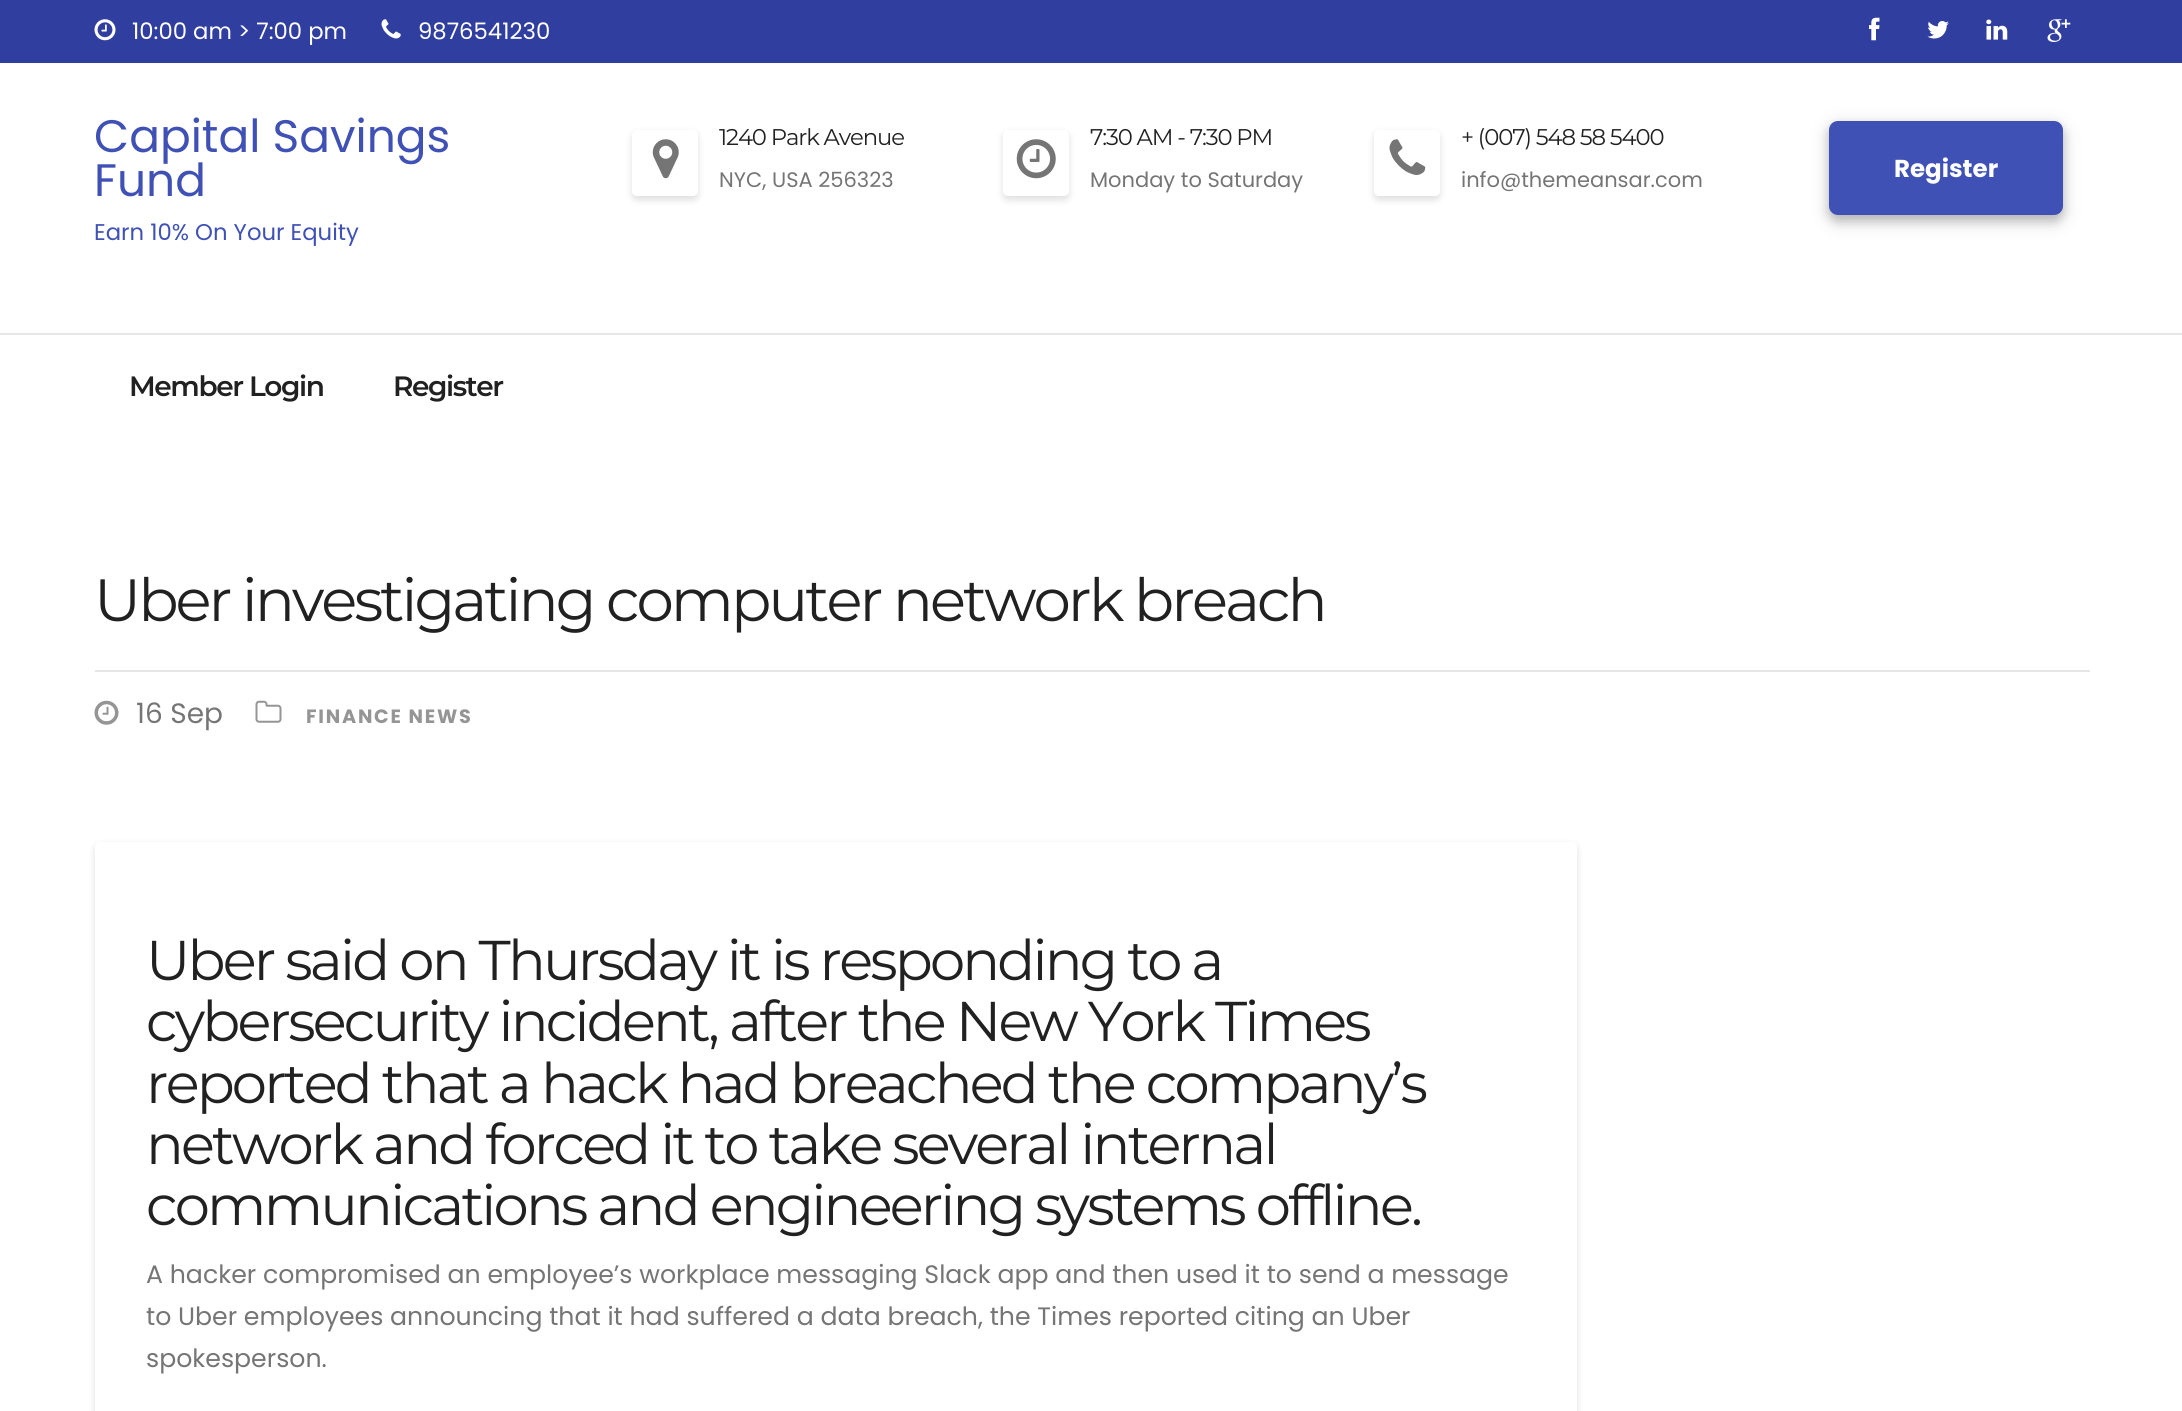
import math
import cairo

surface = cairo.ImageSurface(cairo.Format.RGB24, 2182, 1411)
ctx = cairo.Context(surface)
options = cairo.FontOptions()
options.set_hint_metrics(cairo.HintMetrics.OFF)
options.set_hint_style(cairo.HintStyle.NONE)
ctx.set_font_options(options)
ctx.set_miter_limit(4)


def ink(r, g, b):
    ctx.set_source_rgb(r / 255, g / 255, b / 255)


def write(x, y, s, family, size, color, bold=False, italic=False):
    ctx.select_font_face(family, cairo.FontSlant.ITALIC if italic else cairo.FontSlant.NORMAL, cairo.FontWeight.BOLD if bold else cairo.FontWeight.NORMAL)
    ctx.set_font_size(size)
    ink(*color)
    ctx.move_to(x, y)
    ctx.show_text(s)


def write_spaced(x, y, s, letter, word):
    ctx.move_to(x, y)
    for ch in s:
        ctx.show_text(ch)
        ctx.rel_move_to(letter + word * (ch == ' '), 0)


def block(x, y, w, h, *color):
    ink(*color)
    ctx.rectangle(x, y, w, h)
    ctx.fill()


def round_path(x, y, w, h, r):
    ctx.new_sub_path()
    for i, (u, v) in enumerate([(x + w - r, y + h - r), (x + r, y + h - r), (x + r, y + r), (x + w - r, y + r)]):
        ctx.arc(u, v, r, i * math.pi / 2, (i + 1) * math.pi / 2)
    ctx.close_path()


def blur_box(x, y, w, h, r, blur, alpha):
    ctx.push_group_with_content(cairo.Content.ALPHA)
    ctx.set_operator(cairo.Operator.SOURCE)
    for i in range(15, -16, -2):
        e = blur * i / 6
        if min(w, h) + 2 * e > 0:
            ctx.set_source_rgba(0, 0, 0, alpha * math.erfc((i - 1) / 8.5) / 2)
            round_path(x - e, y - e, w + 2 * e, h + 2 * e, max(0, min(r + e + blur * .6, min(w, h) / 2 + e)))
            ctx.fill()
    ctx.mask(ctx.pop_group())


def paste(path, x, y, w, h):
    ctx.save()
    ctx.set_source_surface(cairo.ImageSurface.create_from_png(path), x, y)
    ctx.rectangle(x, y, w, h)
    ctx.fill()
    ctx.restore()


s1 = dict(family="Poppins", size=22.75, color=(255, 255, 255))
s2 = dict(family="Poppins", size=45.5, color=(63, 81, 181))
s3 = dict(family="Poppins", size=22.75, color=(63, 81, 181))
s4 = dict(family="Poppins", size=21, color=(117, 117, 117))
s5 = dict(family="Poppins", size=24.5, color=(255, 255, 255), bold=True)
s6 = dict(family="Poppins", size=28, color=(117, 117, 117))
s7 = dict(family="Poppins", size=25.2, color=(117, 117, 117))

ink(255, 255, 255)
ctx.paint()
block(0, 0, 2182, 63, 48, 63, 159)
paste("pic1.png", 94, 19, 22, 22)
write(132, 39, "10:00 am > 7:00 pm", **s1)
paste("pic2.png", 381, 19, 20, 20)
write(418, 39, "9876541230", **s1)
paste("pic3.png", 1869, 17, 11, 24)
paste("pic4.png", 1927, 21, 22, 18)
paste("pic5.png", 1986, 19, 22, 21)
paste("pic6.png", 2047, 19, 24, 23)
write(94, 152, "Capital Savings", **s2)
write(94, 196, "Fund", **s2)
write(94, 240, "Earn 10% On Your Equity", **s3)
ink(0, 0, 0)
blur_box(632, 133, 66, 67, 5, 3.5, 0.13)
ink(255, 255, 255)
round_path(632, 130, 66, 66, 5)
ctx.fill()
paste("pic7.png", 652, 139, 27, 40)
ctx.select_font_face("Montserrat")
ink(33, 33, 33)
write_spaced(719, 145, "1240 Park Avenue", -1.1, 0)
write(719, 187, "NYC, USA 256323", **s4)
ink(0, 0, 0)
blur_box(1003, 133, 66, 67, 5, 3.5, 0.13)
ink(255, 255, 255)
round_path(1003, 130, 66, 66, 5)
ctx.fill()
paste("pic8.png", 1016, 139, 40, 40)
ctx.select_font_face("Montserrat")
ctx.set_font_size(22.75)
ink(33, 33, 33)
write_spaced(1090, 145, "7:30 AM - 7:30 PM", -1.1, 0)
write(1090, 187, "Monday to Saturday", **s4)
ink(0, 0, 0)
blur_box(1374, 133, 66, 67, 5, 3.5, 0.13)
ink(255, 255, 255)
round_path(1374, 130, 66, 66, 5)
ctx.fill()
paste("pic9.png", 1389, 139, 37, 36)
ctx.select_font_face("Montserrat")
ctx.set_font_size(22.75)
ink(33, 33, 33)
write_spaced(1461, 145, "+ (007) 548 58 5400", -1.1, 0)
write(1461, 187, "info@themeansar.com", **s4)
ink(0, 0, 0)
blur_box(1829, 126, 234, 95, 9, 5, 0.16)
blur_box(1829, 126, 234, 95, 9, 9, 0.18)
ink(63, 81, 181)
round_path(1829, 121, 234, 94, 9)
ctx.fill()
write(1894, 177, "Register", **s5)
block(0, 333, 2182, 2, 231, 231, 231)
ctx.select_font_face("Montserrat SemiBold")
ctx.set_font_size(28)
ink(33, 33, 33)
write_spaced(129, 396, "Member Login", -1.4, 0)
write_spaced(393, 396, "Register", -1.4, 0)
ctx.select_font_face("Montserrat")
ctx.set_font_size(59.5)
write_spaced(94, 621, "Uber investigating computer network breach", -3, 0)
block(95, 670, 1995, 2, 230, 230, 230)
paste("pic10.png", 94, 700, 25, 25)
write(136, 723, "16 Sep", **s6)
paste("pic11.png", 255, 700, 27, 23)
ctx.select_font_face("Poppins", cairo.FontSlant.NORMAL, cairo.FontWeight.BOLD)
ctx.set_font_size(19.25)
ink(149, 149, 149)
write_spaced(306, 723, "FINANCE NEWS", 1.75, 0)
ink(0, 0, 0)
blur_box(95, 845, 1482, 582, 5, 3.5, 0.13)
ink(255, 255, 255)
round_path(95, 842, 1482, 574, 5)
ctx.fill()
ctx.select_font_face("Montserrat")
ctx.set_font_size(56)
ink(33, 33, 33)
write_spaced(146, 980, "Uber said on Thursday it is responding to a", -2.8, 0)
write_spaced(146, 1041, "cybersecurity incident, after the New York Times", -2.8, 0)
write_spaced(146, 1103, "reported that a hack had breached the company’s", -2.8, 0)
write_spaced(146, 1164, "network and forced it to take several internal", -2.8, 0)
write_spaced(146, 1225, "communications and engineering systems offline.", -2.8, 0)
write(146, 1283, "A hacker compromised an employee’s workplace messaging Slack app and then used it to send a message", **s7)
write(146, 1325, "to Uber employees announcing that it had suffered a data breach, the Times reported citing an Uber", **s7)
write(146, 1367, "spokesperson.", **s7)
surface.write_to_png("screenshot.png")
